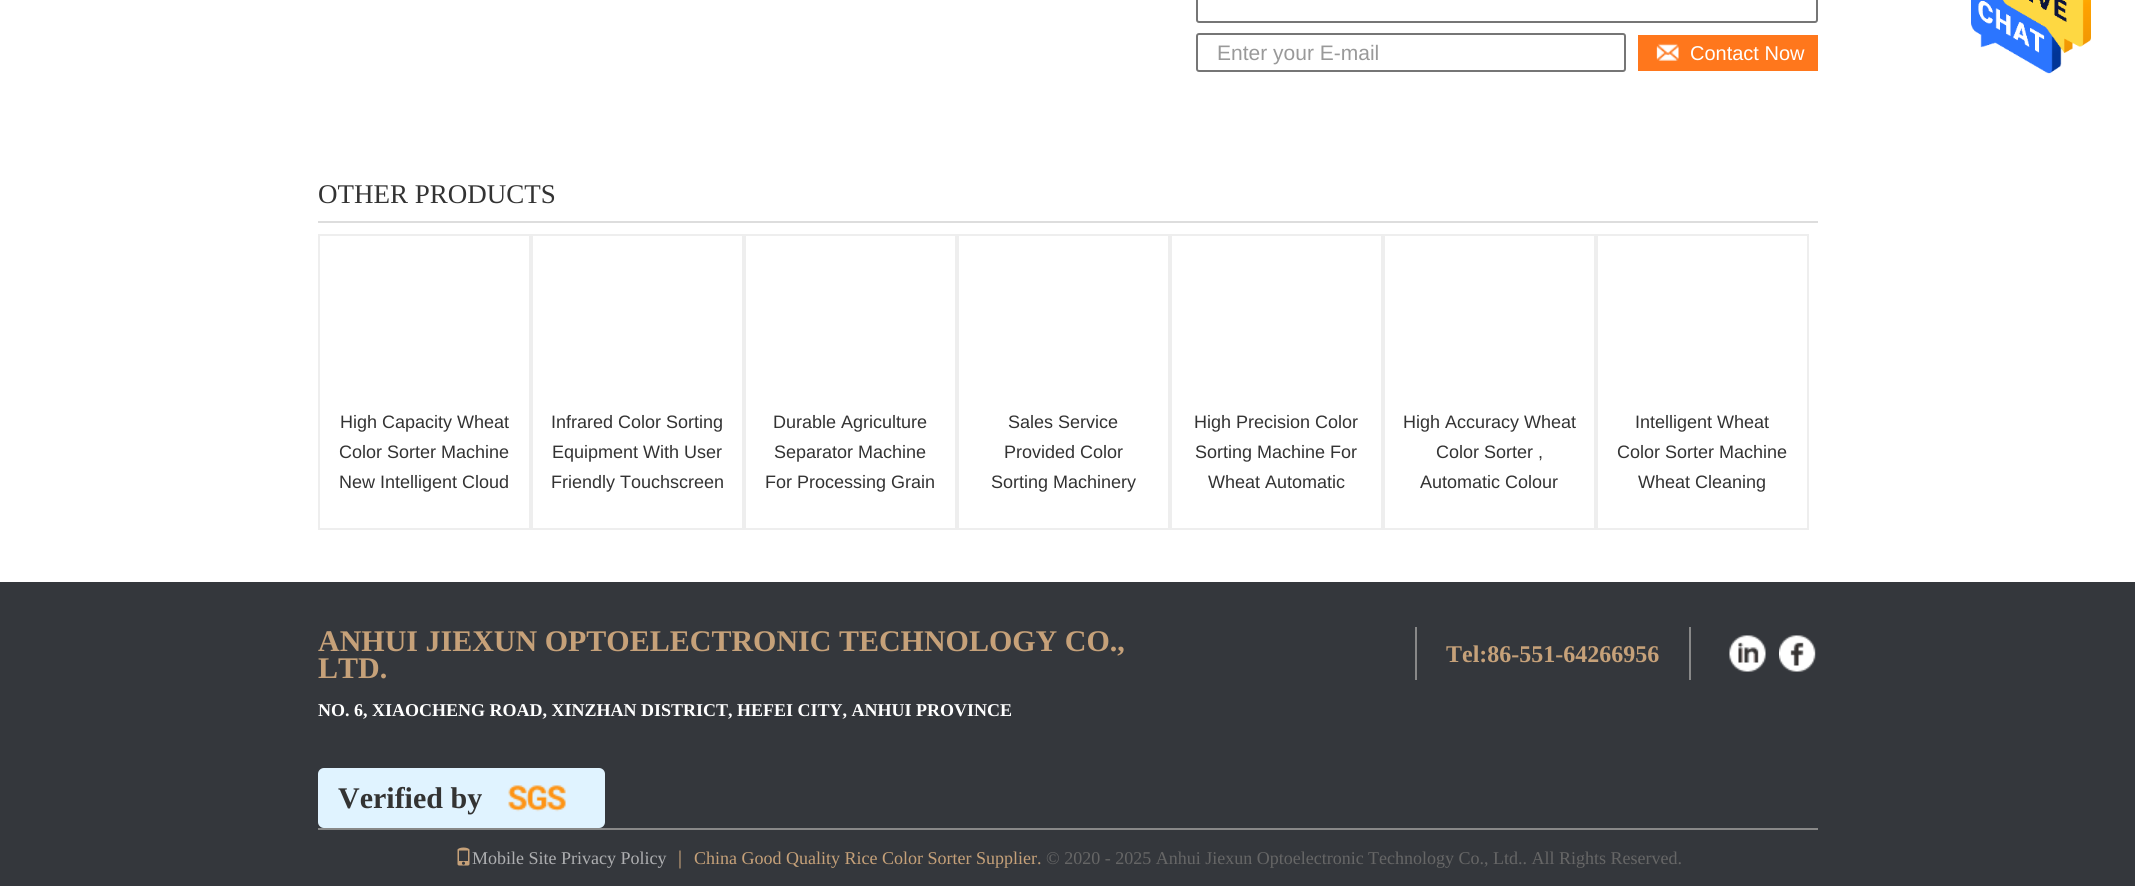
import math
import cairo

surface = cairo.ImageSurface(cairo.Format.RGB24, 2135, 886)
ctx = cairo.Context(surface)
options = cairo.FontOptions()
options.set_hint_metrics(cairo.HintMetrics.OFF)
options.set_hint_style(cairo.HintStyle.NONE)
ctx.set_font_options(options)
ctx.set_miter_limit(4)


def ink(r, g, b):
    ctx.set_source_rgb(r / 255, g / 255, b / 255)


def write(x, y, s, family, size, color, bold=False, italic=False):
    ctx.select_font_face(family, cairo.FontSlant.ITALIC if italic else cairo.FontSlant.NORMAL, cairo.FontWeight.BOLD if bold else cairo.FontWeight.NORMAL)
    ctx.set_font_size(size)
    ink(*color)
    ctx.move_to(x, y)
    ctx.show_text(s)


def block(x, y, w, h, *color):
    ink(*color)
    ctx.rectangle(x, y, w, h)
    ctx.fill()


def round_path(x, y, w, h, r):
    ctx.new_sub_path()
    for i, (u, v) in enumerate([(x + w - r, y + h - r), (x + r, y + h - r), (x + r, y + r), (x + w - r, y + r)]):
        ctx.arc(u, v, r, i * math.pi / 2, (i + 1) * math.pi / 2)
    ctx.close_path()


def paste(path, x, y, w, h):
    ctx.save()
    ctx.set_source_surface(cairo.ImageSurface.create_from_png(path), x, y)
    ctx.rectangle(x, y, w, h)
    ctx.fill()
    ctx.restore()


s1 = dict(family="Liberation Sans", size=21, color=(153, 153, 153))
s2 = dict(family="Liberation Sans", size=20, color=(255, 255, 255))
s3 = dict(family="Liberation Serif", size=27, color=(51, 51, 51))
s4 = dict(family="Liberation Sans", size=18, color=(51, 51, 51))
s5 = dict(family="Liberation Serif", size=30, color=(198, 161, 121), bold=True)
s6 = dict(family="Liberation Serif", size=18, color=(255, 255, 255), bold=True)
s7 = dict(family="Liberation Serif", size=24, color=(198, 161, 121), bold=True)
s8 = dict(family="Liberation Serif", size=30, color=(51, 51, 51), bold=True)
s9 = dict(family="Liberation Serif", size=18, color=(174, 175, 177))
s10 = dict(family="WenQuanYi Zen Hei Medium", size=18, color=(198, 161, 121))
s11 = dict(family="Liberation Serif", size=18, color=(198, 161, 121))
s12 = dict(family="Liberation Serif", size=18, color=(102, 102, 102))

ink(255, 255, 255)
ctx.paint()
round_path(1197, -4, 620, 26, 2)
ink(118, 118, 118)
ctx.stroke()
round_path(1197, 34, 428, 37, 2)
ctx.stroke()
write(1217, 60, "Enter your E-mail", **s1)
block(1638, 35, 180, 36, 255, 119, 28)
paste("pic1.png", 1656, 43, 23, 18)
write(1690, 60, "Contact Now", **s2)
block(318, 221, 1500, 2, 221, 221, 221)
write(318, 203, "OTHER PRODUCTS", **s3)
ctx.rectangle(319, 235, 211, 294)
ink(238, 238, 238)
ctx.stroke()
write(340, 428, "High Capacity Wheat", **s4)
write(339, 458, "Color Sorter Machine", **s4)
write(339, 488, "New Intelligent Cloud", **s4)
ctx.rectangle(532, 235, 211, 294)
ink(238, 238, 238)
ctx.stroke()
write(551, 428, "Infrared Color Sorting", **s4)
write(552, 458, "Equipment With User", **s4)
write(551, 488, "Friendly Touchscreen", **s4)
ctx.rectangle(745, 235, 211, 294)
ink(238, 238, 238)
ctx.stroke()
write(773, 428, "Durable Agriculture", **s4)
write(774, 458, "Separator Machine", **s4)
write(765, 488, "For Processing Grain", **s4)
ctx.rectangle(958, 235, 211, 294)
ink(238, 238, 238)
ctx.stroke()
write(1008, 428, "Sales Service", **s4)
write(1004, 458, "Provided Color", **s4)
write(991, 488, "Sorting Machinery", **s4)
ctx.rectangle(1171, 235, 211, 294)
ink(238, 238, 238)
ctx.stroke()
write(1194, 428, "High Precision Color", **s4)
write(1195, 458, "Sorting Machine For", **s4)
write(1208, 488, "Wheat Automatic", **s4)
ctx.rectangle(1384, 235, 211, 294)
ink(238, 238, 238)
ctx.stroke()
write(1403, 428, "High Accuracy Wheat", **s4)
write(1436, 458, "Color Sorter ,", **s4)
write(1420, 488, "Automatic Colour", **s4)
ctx.rectangle(1597, 235, 211, 294)
ink(238, 238, 238)
ctx.stroke()
write(1635, 428, "Intelligent Wheat", **s4)
write(1617, 458, "Color Sorter Machine", **s4)
write(1638, 488, "Wheat Cleaning", **s4)
paste("pic2.png", 1971, 0, 120, 74)
block(0, 582, 2135, 304, 52, 55, 60)
write(318, 651, "ANHUI JIEXUN OPTOELECTRONIC TECHNOLOGY CO.,", **s5)
write(318, 678, "LTD.", **s5)
write(318, 716, "NO. 6, XIAOCHENG ROAD, XINZHAN DISTRICT, HEFEI CITY, ANHUI PROVINCE", **s6)
block(1689, 627, 2, 53, 136, 136, 136)
block(1415, 627, 2, 53, 136, 136, 136)
write(1446, 662, "Tel:86-551-64266956", **s7)
paste("pic3.png", 1729, 635, 37, 37)
paste("pic4.png", 1779, 635, 37, 37)
ink(224, 243, 255)
round_path(318, 768, 287, 60, 6)
ctx.fill()
write(338, 808, "Verified by", **s8)
paste("pic5.png", 508, 785, 58, 27)
block(318, 828, 1500, 2, 136, 136, 136)
paste("pic6.png", 457, 847, 13, 19)
write(472, 864, "Mobile Site Privacy Policy", **s9)
write(671, 864, "｜", **s10)
write(694, 864, "China Good Quality Rice Color Sorter Supplier.", **s11)
write(1046, 864, "© 2020 - 2025 Anhui Jiexun Optoelectronic Technology Co., Ltd.. All Rights Reserved.", **s12)
surface.write_to_png("screenshot.png")
